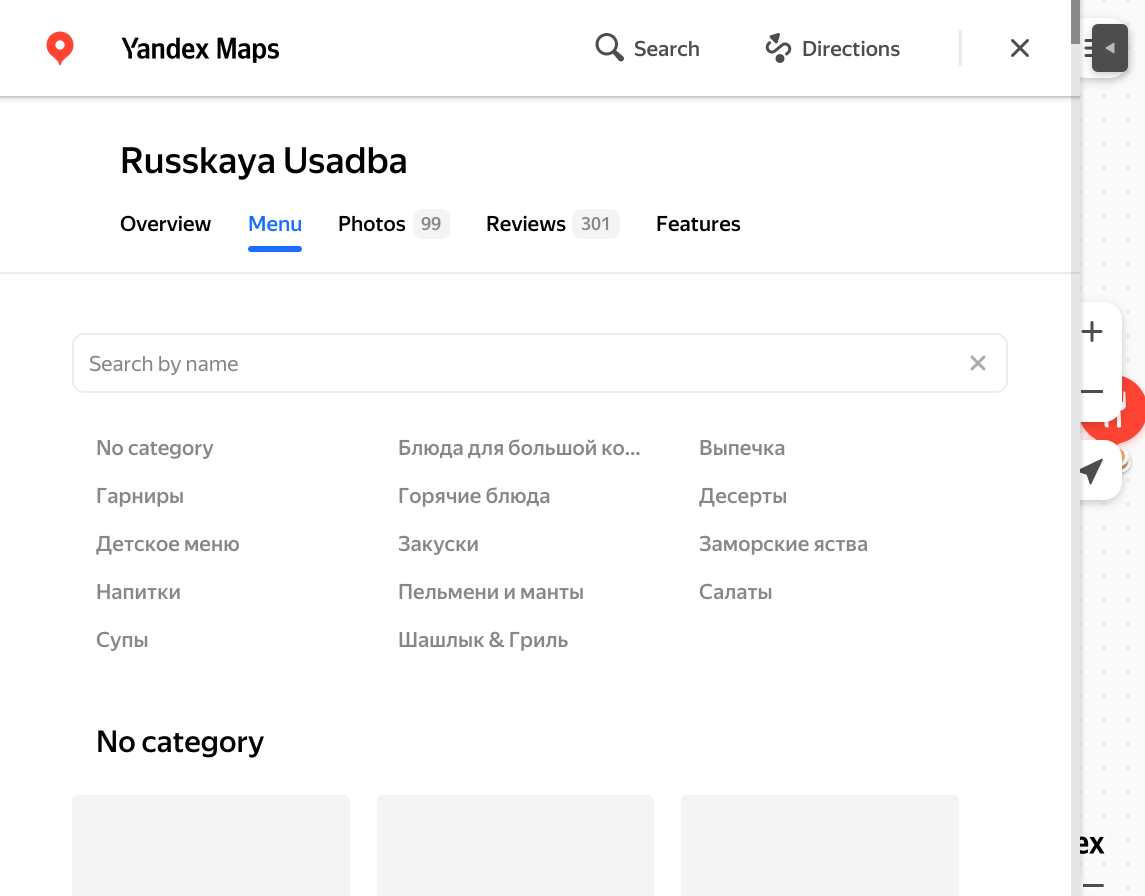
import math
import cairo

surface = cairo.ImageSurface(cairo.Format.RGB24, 1145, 896)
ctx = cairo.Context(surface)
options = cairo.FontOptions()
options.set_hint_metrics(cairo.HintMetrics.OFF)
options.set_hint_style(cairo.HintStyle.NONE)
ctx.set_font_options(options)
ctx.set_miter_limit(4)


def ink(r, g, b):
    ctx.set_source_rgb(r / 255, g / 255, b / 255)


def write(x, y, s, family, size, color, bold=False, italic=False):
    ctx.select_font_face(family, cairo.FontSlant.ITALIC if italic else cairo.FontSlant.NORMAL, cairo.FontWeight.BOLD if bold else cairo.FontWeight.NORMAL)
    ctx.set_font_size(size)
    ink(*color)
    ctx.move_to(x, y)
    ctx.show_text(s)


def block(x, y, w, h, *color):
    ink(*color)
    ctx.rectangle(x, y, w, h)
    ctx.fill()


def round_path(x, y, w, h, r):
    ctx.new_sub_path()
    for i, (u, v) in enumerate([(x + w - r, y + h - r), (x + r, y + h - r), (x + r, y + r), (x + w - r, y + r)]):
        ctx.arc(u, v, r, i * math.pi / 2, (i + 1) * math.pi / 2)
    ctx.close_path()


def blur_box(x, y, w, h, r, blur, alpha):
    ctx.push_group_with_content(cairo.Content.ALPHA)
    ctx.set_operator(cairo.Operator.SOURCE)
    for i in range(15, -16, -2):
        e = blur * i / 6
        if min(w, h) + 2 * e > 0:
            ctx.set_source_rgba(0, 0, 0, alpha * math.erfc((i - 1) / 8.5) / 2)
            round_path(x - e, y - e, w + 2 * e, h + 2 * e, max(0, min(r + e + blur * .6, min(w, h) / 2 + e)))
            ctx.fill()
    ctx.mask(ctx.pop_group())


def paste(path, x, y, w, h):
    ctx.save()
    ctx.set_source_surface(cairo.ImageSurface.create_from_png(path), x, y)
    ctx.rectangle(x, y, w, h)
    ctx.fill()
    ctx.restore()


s1 = dict(family="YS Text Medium", size=21, color=(77, 77, 77))
s2 = dict(family="YS Text Medium", size=36, color=(0, 0, 0))
s3 = dict(family="YS Text Medium", size=21, color=(0, 0, 0))
s4 = dict(family="YS Text Medium", size=21, color=(25, 109, 255))
s5 = dict(family="YS Text Medium", size=18, color=(135, 135, 135))
s6 = dict(family="YS Text", size=21, color=(135, 135, 135))
s7 = dict(family="YS Text Medium", size=21, color=(135, 135, 135))
s8 = dict(family="YS Text Medium", size=30, color=(0, 0, 0))

ink(255, 255, 255)
ctx.paint()
paste("pic1.png", 1080, 0, 65, 896)
ink(0, 0, 0)
blur_box(1068, 21, 60, 60, 18, 4.5, 0.2)
ink(255, 255, 255)
round_path(1068, 18, 60, 60, 18)
ctx.fill()
paste("pic9.png", 1084, 39, 8, 18)
paste("pic19.png", 1122, 457, 9, 16)
paste("pic17.png", 1122, 451, 11, 22)
paste("pic18.png", 1122, 456, 11, 20)
paste("pic16.png", 1120, 446, 11, 24)
paste("pic15.png", 1117, 446, 13, 23)
paste("pic13.png", 1080, 373, 65, 80)
paste("pic14.png", 1104, 391, 22, 37)
ink(0, 0, 0)
blur_box(1062, 305, 60, 120, 18, 4.5, 0.2)
ink(255, 255, 255)
ctx.new_path()
ctx.move_to(1080, 302)
ctx.line_to(1104, 302)
ctx.curve_to(1114, 302, 1122, 310, 1122, 320)
ctx.line_to(1122, 362)
ctx.line_to(1062, 362)
ctx.line_to(1062, 320)
ctx.curve_to(1062, 310, 1070, 302, 1080, 302)
ctx.close_path()
ctx.fill()
paste("pic10.png", 1081, 321, 22, 21)
ctx.new_path()
ctx.move_to(1062, 362)
ctx.line_to(1122, 362)
ctx.line_to(1122, 404)
ctx.curve_to(1122, 414, 1114, 422, 1104, 422)
ctx.line_to(1080, 422)
ctx.curve_to(1070, 422, 1062, 414, 1062, 404)
ctx.close_path()
ctx.fill()
block(1081, 390, 22, 3, 77, 77, 77)
ink(0, 0, 0)
blur_box(1062, 443, 60, 60, 18, 4.5, 0.2)
ink(255, 255, 255)
round_path(1062, 440, 60, 60, 18)
ctx.fill()
paste("pic11.png", 1080, 458, 23, 27)
paste("pic12.png", 1080, 833, 26, 21)
ctx.set_source_rgba(1, 1, 1, 0.6)
round_path(1005, 881, 102, 9, 4.5)
ctx.fill()
ink(77, 77, 77)
round_path(1008, 884, 96, 3, 1.5)
ctx.fill()
ink(255, 255, 255)
ctx.new_path()
ctx.move_to(1035, 873)
ctx.line_to(1077, 873)
ctx.curve_to(1080.5, 873, 1083, 875.5, 1083, 879)
ctx.line_to(1083, 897)
ctx.line_to(1029, 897)
ctx.line_to(1029, 879)
ctx.curve_to(1029, 875.5, 1031.5, 873, 1035, 873)
ctx.close_path()
ctx.fill()
ink(0, 0, 0)
blur_box(3, 0, 1080, 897, 0, 1.5, 0.1)
block(1, 98, 1079, 798, 255, 255, 255)
block(0, 96, 1080, 2, 235, 235, 235)
ctx.save()
ctx.rectangle(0, 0, 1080, 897)
ctx.clip()
ink(0, 0, 0)
blur_box(0, 92, 1080, 6, 0, 3, 0.2)
ctx.restore()
ink(0, 0, 0)
blur_box(1092, 27, 36, 48, 6, 4.5, 0.2)
block(0, 0, 1080, 96, 255, 255, 255)
paste("pic2.png", 46, 31, 28, 35)
paste("pic3.png", 121, 37, 158, 26)
paste("pic4.png", 595, 33, 29, 29)
write(634, 56, "Search", **s1)
paste("pic5.png", 765, 33, 27, 30)
write(802, 56, "Directions", **s1)
block(959, 30, 3, 36, 235, 235, 235)
paste("pic6.png", 1011, 39, 18, 18)
write(120, 173, "Russkaya Usadba", **s2)
write(120, 231, "Overview", **s3)
write(248, 231, "Menu", **s4)
write(338, 231, "Photos", **s3)
ink(244, 244, 244)
round_path(413, 209, 37, 30, 9)
ctx.fill()
write(421, 230, "99", **s5)
write(486, 231, "Reviews", **s3)
ink(244, 244, 244)
round_path(572, 209, 48, 30, 9)
ctx.fill()
write(581, 230, "301", **s5)
write(656, 231, "Features", **s3)
ink(25, 109, 255)
round_path(248, 246, 54, 6, 3)
ctx.fill()
block(0, 272, 1080, 2, 235, 235, 235)
round_path(73, 334, 934, 58, 11)
ink(238, 238, 238)
ctx.stroke()
write(89, 371, "Search by name", **s6)
paste("pic7.png", 970, 355, 16, 16)
write(96, 455, "No category", **s7)
write(398, 455, "Блюда для большой ко…", **s7)
write(699, 455, "Выпечка", **s7)
write(96, 503, "Гарниры", **s7)
write(398, 503, "Горячие блюда", **s7)
write(699, 503, "Десерты", **s7)
write(96, 551, "Детское меню", **s7)
write(398, 551, "Закуски", **s7)
write(699, 551, "Заморские яства", **s7)
write(96, 599, "Напитки", **s7)
write(398, 599, "Пельмени и манты", **s7)
write(699, 599, "Салаты", **s7)
write(96, 647, "Супы", **s7)
write(398, 647, "Шашлык & Гриль", **s7)
write(96, 752, "No category", **s8)
ink(244, 244, 244)
ctx.new_path()
ctx.move_to(78, 795)
ctx.line_to(344, 795)
ctx.curve_to(347.5, 795, 350, 797.5, 350, 801)
ctx.line_to(350, 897)
ctx.line_to(72, 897)
ctx.line_to(72, 801)
ctx.curve_to(72, 797.5, 74.5, 795, 78, 795)
ctx.close_path()
ctx.fill()
ctx.new_path()
ctx.move_to(383, 795)
ctx.line_to(648, 795)
ctx.curve_to(651.5, 795, 654, 797.5, 654, 801)
ctx.line_to(654, 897)
ctx.line_to(377, 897)
ctx.line_to(377, 801)
ctx.curve_to(377, 797.5, 379.5, 795, 383, 795)
ctx.close_path()
ctx.fill()
ctx.new_path()
ctx.move_to(687, 795)
ctx.line_to(953, 795)
ctx.curve_to(956.5, 795, 959, 797.5, 959, 801)
ctx.line_to(959, 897)
ctx.line_to(681, 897)
ctx.line_to(681, 801)
ctx.curve_to(681, 797.5, 683.5, 795, 687, 795)
ctx.close_path()
ctx.fill()
block(1071, 0, 9, 44, 138, 138, 138)
ctx.set_source_rgba(0, 0, 0, 0.1)
ctx.rectangle(1071, 44, 9, 852)
ctx.fill()
ink(77, 77, 77)
round_path(1092, 24, 36, 48, 6)
ctx.fill()
paste("pic8.png", 1105, 42, 10, 12)
surface.write_to_png("screenshot.png")
